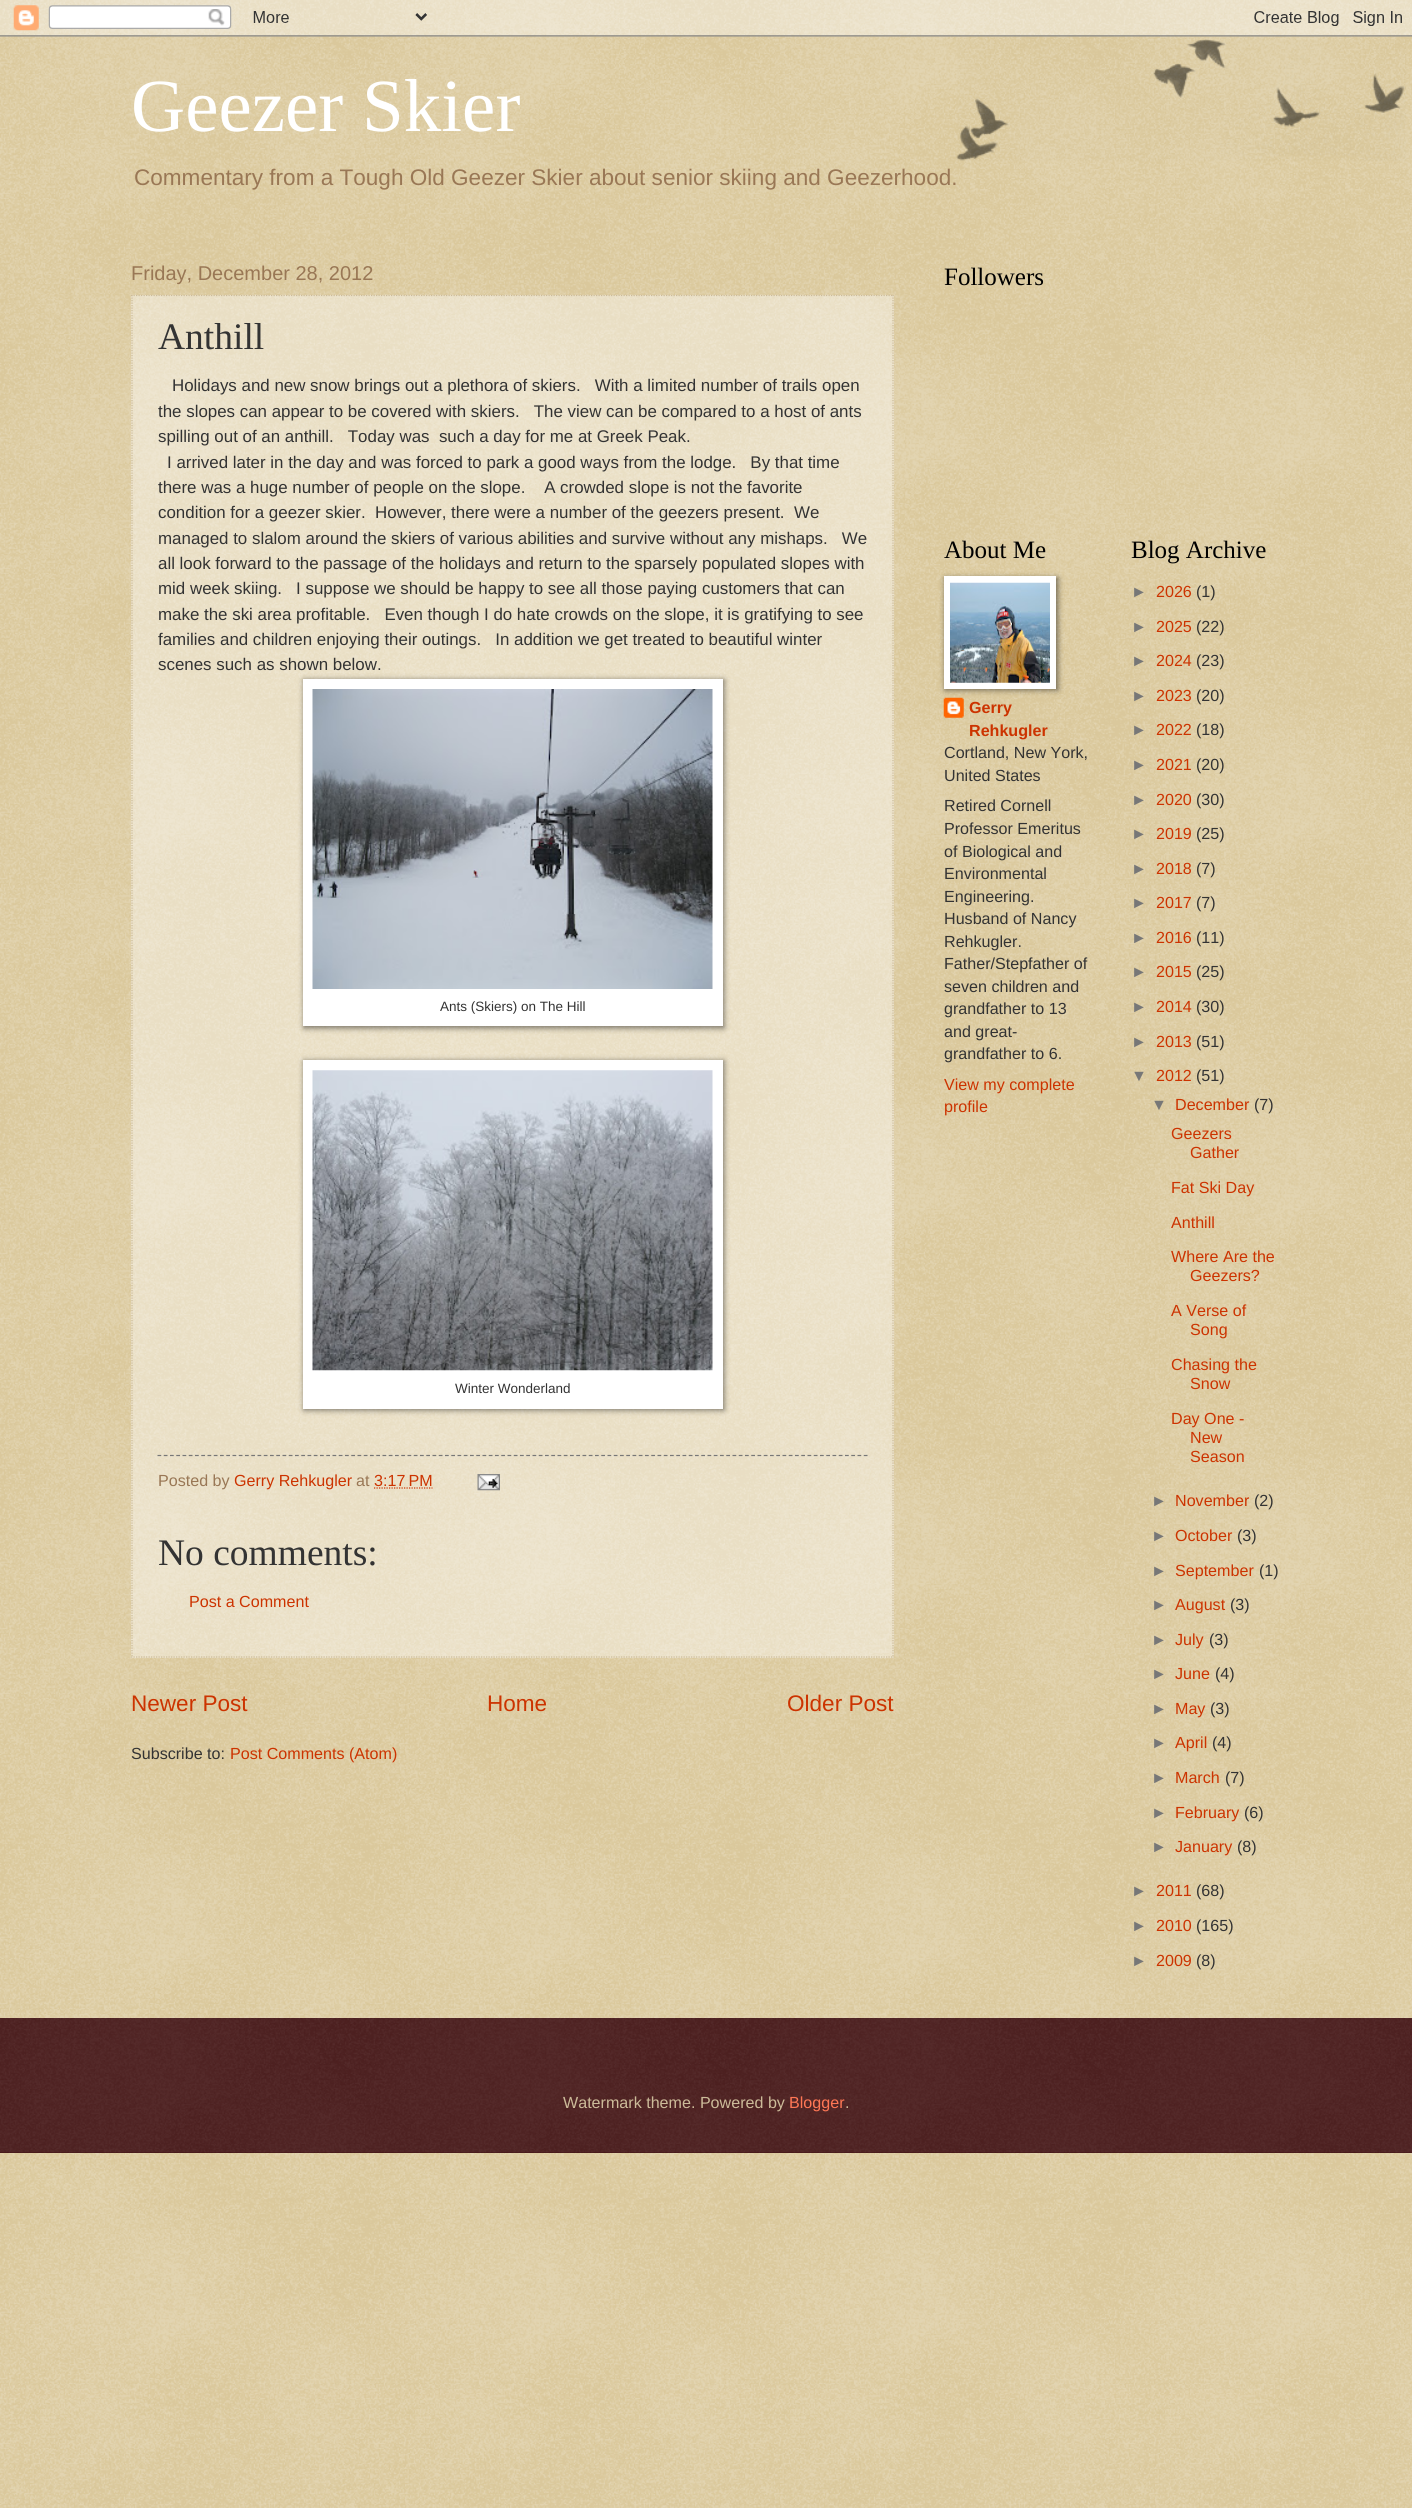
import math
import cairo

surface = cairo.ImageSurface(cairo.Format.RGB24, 1412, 2508)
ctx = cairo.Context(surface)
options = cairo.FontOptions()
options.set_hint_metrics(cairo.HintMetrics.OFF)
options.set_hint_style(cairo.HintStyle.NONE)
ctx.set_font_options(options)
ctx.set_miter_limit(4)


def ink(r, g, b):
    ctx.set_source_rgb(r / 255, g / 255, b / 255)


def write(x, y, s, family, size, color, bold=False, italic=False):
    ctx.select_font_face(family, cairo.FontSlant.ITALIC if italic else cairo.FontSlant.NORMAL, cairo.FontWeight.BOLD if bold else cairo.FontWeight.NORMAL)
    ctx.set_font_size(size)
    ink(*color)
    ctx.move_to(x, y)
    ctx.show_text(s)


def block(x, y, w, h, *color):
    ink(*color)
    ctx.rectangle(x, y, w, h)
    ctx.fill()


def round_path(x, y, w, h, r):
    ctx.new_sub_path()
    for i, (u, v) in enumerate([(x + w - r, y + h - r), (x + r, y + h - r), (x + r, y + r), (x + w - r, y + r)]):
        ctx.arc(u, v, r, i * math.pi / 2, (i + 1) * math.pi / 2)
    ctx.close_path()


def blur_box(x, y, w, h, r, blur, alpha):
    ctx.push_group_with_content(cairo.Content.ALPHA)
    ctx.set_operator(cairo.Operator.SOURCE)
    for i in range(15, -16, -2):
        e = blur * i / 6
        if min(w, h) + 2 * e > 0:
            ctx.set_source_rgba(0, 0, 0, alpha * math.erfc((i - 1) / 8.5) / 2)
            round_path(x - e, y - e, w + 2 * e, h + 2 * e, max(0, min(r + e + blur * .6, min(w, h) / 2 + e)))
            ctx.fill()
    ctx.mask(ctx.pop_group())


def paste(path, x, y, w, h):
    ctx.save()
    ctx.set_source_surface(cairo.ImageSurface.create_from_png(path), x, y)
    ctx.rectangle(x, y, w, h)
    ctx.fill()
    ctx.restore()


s1 = dict(family="Liberation Serif", size=75, color=(255, 255, 255))
s2 = dict(family="Liberation Sans", size=22.55, color=(153, 119, 85))
s3 = dict(family="Liberation Sans", size=20, color=(153, 119, 85))
s4 = dict(family="Liberation Serif", size=37.5, color=(51, 51, 51))
s5 = dict(family="Liberation Sans", size=16.9, color=(51, 51, 51))
s6 = dict(family="Liberation Sans", size=13.5, color=(51, 51, 51))
s7 = dict(family="Liberation Sans", size=16.1, color=(153, 119, 85))
s8 = dict(family="Liberation Sans", size=16.1, color=(204, 51, 0))
s9 = dict(family="Liberation Sans", size=22.55, color=(204, 51, 0))
s10 = dict(family="Liberation Sans", size=16.1, color=(51, 51, 51))
s11 = dict(family="Liberation Serif", size=25, color=(0, 0, 0))
s12 = dict(family="Liberation Sans", size=16.1, color=(204, 51, 0), bold=True)
s13 = dict(family="Liberation Sans", size=16.1, color=(119, 119, 119))
s14 = dict(family="Liberation Sans", size=16.1, color=(204, 187, 153))
s15 = dict(family="Liberation Sans", size=16.1, color=(255, 119, 85))

ink(192, 161, 84)
ctx.paint()
paste("pic1.png", 0, 0, 1412, 2508)
paste("pic2.png", 0, 0, 1412, 37)
paste("pic3.png", 956, 39, 450, 122)
write(131, 131, "Geezer Skier", **s1)
write(134, 185, "Commentary from a Tough Old Geezer Skier about senior skiing and Geezerhood.", **s2)
write(131, 280, "Friday, December 28, 2012", **s3)
ctx.set_source_rgba(1, 1, 1, 0.4)
ctx.rectangle(131, 295, 763, 1363)
ctx.fill()
ctx.new_path()
ctx.move_to(131, 295.5)
ctx.line_to(894, 295.5)
ink(204, 187, 153)
ctx.set_line_width(1.2)
ctx.set_dash([1.25, 1.25])
ctx.stroke()
ctx.new_path()
ctx.move_to(893, 295)
ctx.line_to(893, 1657.5)
ctx.stroke()
ctx.new_path()
ctx.move_to(131, 1657)
ctx.line_to(894, 1657)
ctx.stroke()
ctx.new_path()
ctx.move_to(132, 295)
ctx.line_to(132, 1657.5)
ctx.stroke()
write(158, 349, "Anthill", **s4)
write(172, 391, "Holidays and new snow brings out a plethora of skiers.   With a limited number of trails open", **s5)
write(158, 417, "the slopes can appear to be covered with skiers.   The view can be compared to a host of ants", **s5)
write(158, 442, "spilling out of an anthill.   Today was  such a day for me at Greek Peak.", **s5)
write(167, 468, "I arrived later in the day and was forced to park a good ways from the lodge.   By that time", **s5)
write(158, 493, "there was a huge number of people on the slope.    A crowded slope is not the favorite", **s5)
write(158, 518, "condition for a geezer skier.  However, there were a number of the geezers present.  We", **s5)
write(158, 544, "managed to slalom around the skiers of various abilities and survive without any mishaps.   We", **s5)
write(158, 569, "all look forward to the passage of the holidays and return to the sparsely populated slopes with", **s5)
write(158, 594, "mid week skiing.   I suppose we should be happy to see all those paying customers that can", **s5)
write(158, 620, "make the ski area profitable.   Even though I do hate crowds on the slope, it is gratifying to see", **s5)
write(158, 645, "families and children enjoying their outings.   In addition we get treated to beautiful winter", **s5)
write(158, 670, "scenes such as shown below.", **s5)
ink(0, 0, 0)
blur_box(304, 680, 420, 348, 0, 3, 0.5)
block(303, 679, 420, 347, 255, 255, 255)
paste("pic4.png", 312, 689, 401, 300)
write(440, 1011, "Ants (Skiers) on The Hill", **s6)
ink(0, 0, 0)
blur_box(304, 1061, 420, 349, 0, 3, 0.5)
block(303, 1060, 420, 349, 255, 255, 255)
paste("pic5.png", 312, 1070, 401, 301)
write(455, 1393, "Winter Wonderland", **s6)
ctx.new_path()
ctx.move_to(157.5, 1455.5)
ctx.line_to(867.5, 1455.5)
ink(119, 119, 119)
ctx.set_dash([3.75, 2.5])
ctx.stroke()
write(158, 1486, "Posted by", **s7)
write(234, 1486, "Gerry Rehkugler", **s8)
write(356, 1486, "at", **s7)
write(374, 1486, "3:17 PM", **s8)
ctx.new_path()
ctx.move_to(374, 1488)
ctx.line_to(432.5, 1488)
ctx.set_dash([1.25, 1.25])
ctx.stroke()
paste("pic6.png", 477, 1474, 23, 17)
write(158, 1565, "No comments:", **s4)
write(189, 1607, "Post a Comment", **s8)
write(131, 1711, "Newer Post", **s9)
write(487, 1711, "Home", **s9)
write(787, 1711, "Older Post", **s9)
write(131, 1759, "Subscribe to:", **s10)
write(230, 1759, "Post Comments (Atom)", **s8)
write(944, 285, "Followers", **s11)
write(944, 558, "About Me", **s11)
paste("pic8.png", 943, 697, 21, 21)
ink(0, 0, 0)
blur_box(945, 578, 113, 112, 0, 3, 0.5)
block(944, 576, 112, 113, 255, 255, 255)
paste("pic7.png", 950, 582, 100, 101)
write(969, 713, "Gerry", **s12)
write(969, 736, "Rehkugler", **s12)
write(944, 758, "Cortland, New York,", **s10)
write(944, 781, "United States", **s10)
write(944, 811, "Retired Cornell", **s10)
write(944, 834, "Professor Emeritus", **s10)
write(944, 857, "of Biological and", **s10)
write(944, 879, "Environmental", **s10)
write(944, 902, "Engineering.", **s10)
write(944, 924, "Husband of Nancy", **s10)
write(944, 947, "Rehkugler.", **s10)
write(944, 969, "Father/Stepfather of", **s10)
write(944, 992, "seven children and", **s10)
write(944, 1014, "grandfather to 13", **s10)
write(944, 1037, "and great-", **s10)
write(944, 1059, "grandfather to 6.", **s10)
write(944, 1090, "View my complete", **s8)
write(944, 1112, "profile", **s8)
write(1131, 558, "Blog Archive", **s11)
write(1131, 597, "►", **s13)
write(1156, 597, "2026", **s8)
write(1196, 597, "(1)", **s10)
write(1131, 632, "►", **s13)
write(1156, 632, "2025", **s8)
write(1196, 632, "(22)", **s10)
write(1131, 666, "►", **s13)
write(1156, 666, "2024", **s8)
write(1196, 666, "(23)", **s10)
write(1131, 701, "►", **s13)
write(1156, 701, "2023", **s8)
write(1196, 701, "(20)", **s10)
write(1131, 735, "►", **s13)
write(1156, 735, "2022", **s8)
write(1196, 735, "(18)", **s10)
write(1131, 770, "►", **s13)
write(1156, 770, "2021", **s8)
write(1196, 770, "(20)", **s10)
write(1131, 805, "►", **s13)
write(1156, 805, "2020", **s8)
write(1196, 805, "(30)", **s10)
write(1131, 839, "►", **s13)
write(1156, 839, "2019", **s8)
write(1196, 839, "(25)", **s10)
write(1131, 874, "►", **s13)
write(1156, 874, "2018", **s8)
write(1196, 874, "(7)", **s10)
write(1131, 908, "►", **s13)
write(1156, 908, "2017", **s8)
write(1196, 908, "(7)", **s10)
write(1131, 943, "►", **s13)
write(1156, 943, "2016", **s8)
write(1196, 943, "(11)", **s10)
write(1131, 977, "►", **s13)
write(1156, 977, "2015", **s8)
write(1196, 977, "(25)", **s10)
write(1131, 1012, "►", **s13)
write(1156, 1012, "2014", **s8)
write(1196, 1012, "(30)", **s10)
write(1131, 1047, "►", **s13)
write(1156, 1047, "2013", **s8)
write(1196, 1047, "(51)", **s10)
write(1131, 1081, "▼", **s13)
write(1156, 1081, "2012", **s8)
write(1196, 1081, "(51)", **s10)
write(1151, 1110, "▼", **s13)
write(1175, 1110, "December", **s8)
write(1254, 1110, "(7)", **s10)
write(1171, 1139, "Geezers", **s8)
write(1190, 1158, "Gather", **s8)
write(1171, 1193, "Fat Ski Day", **s8)
write(1171, 1228, "Anthill", **s8)
write(1171, 1262, "Where Are the", **s8)
write(1190, 1281, "Geezers?", **s8)
write(1171, 1316, "A Verse of", **s8)
write(1190, 1335, "Song", **s8)
write(1171, 1370, "Chasing the", **s8)
write(1190, 1389, "Snow", **s8)
write(1171, 1424, "Day One -", **s8)
write(1190, 1443, "New", **s8)
write(1190, 1462, "Season", **s8)
write(1151, 1506, "►", **s13)
write(1175, 1506, "November", **s8)
write(1254, 1506, "(2)", **s10)
write(1151, 1541, "►", **s13)
write(1175, 1541, "October", **s8)
write(1237, 1541, "(3)", **s10)
write(1151, 1576, "►", **s13)
write(1175, 1576, "September", **s8)
write(1259, 1576, "(1)", **s10)
write(1151, 1610, "►", **s13)
write(1175, 1610, "August", **s8)
write(1230, 1610, "(3)", **s10)
write(1151, 1645, "►", **s13)
write(1175, 1645, "July", **s8)
write(1209, 1645, "(3)", **s10)
write(1151, 1679, "►", **s13)
write(1175, 1679, "June", **s8)
write(1215, 1679, "(4)", **s10)
write(1151, 1714, "►", **s13)
write(1175, 1714, "May", **s8)
write(1210, 1714, "(3)", **s10)
write(1151, 1748, "►", **s13)
write(1175, 1748, "April", **s8)
write(1212, 1748, "(4)", **s10)
write(1151, 1783, "►", **s13)
write(1175, 1783, "March", **s8)
write(1225, 1783, "(7)", **s10)
write(1151, 1818, "►", **s13)
write(1175, 1818, "February", **s8)
write(1244, 1818, "(6)", **s10)
write(1151, 1852, "►", **s13)
write(1175, 1852, "January", **s8)
write(1237, 1852, "(8)", **s10)
write(1131, 1896, "►", **s13)
write(1156, 1896, "2011", **s8)
write(1196, 1896, "(68)", **s10)
write(1131, 1931, "►", **s13)
write(1156, 1931, "2010", **s8)
write(1196, 1931, "(165)", **s10)
write(1131, 1966, "►", **s13)
write(1156, 1966, "2009", **s8)
write(1196, 1966, "(8)", **s10)
block(0, 2018, 1412, 135, 51, 0, 0)
paste("pic9.png", 0, 2017, 1412, 136)
write(563, 2108, "Watermark theme. Powered by", **s14)
write(789, 2108, "Blogger", **s15)
write(845, 2108, ".", **s14)
surface.write_to_png("screenshot.png")
